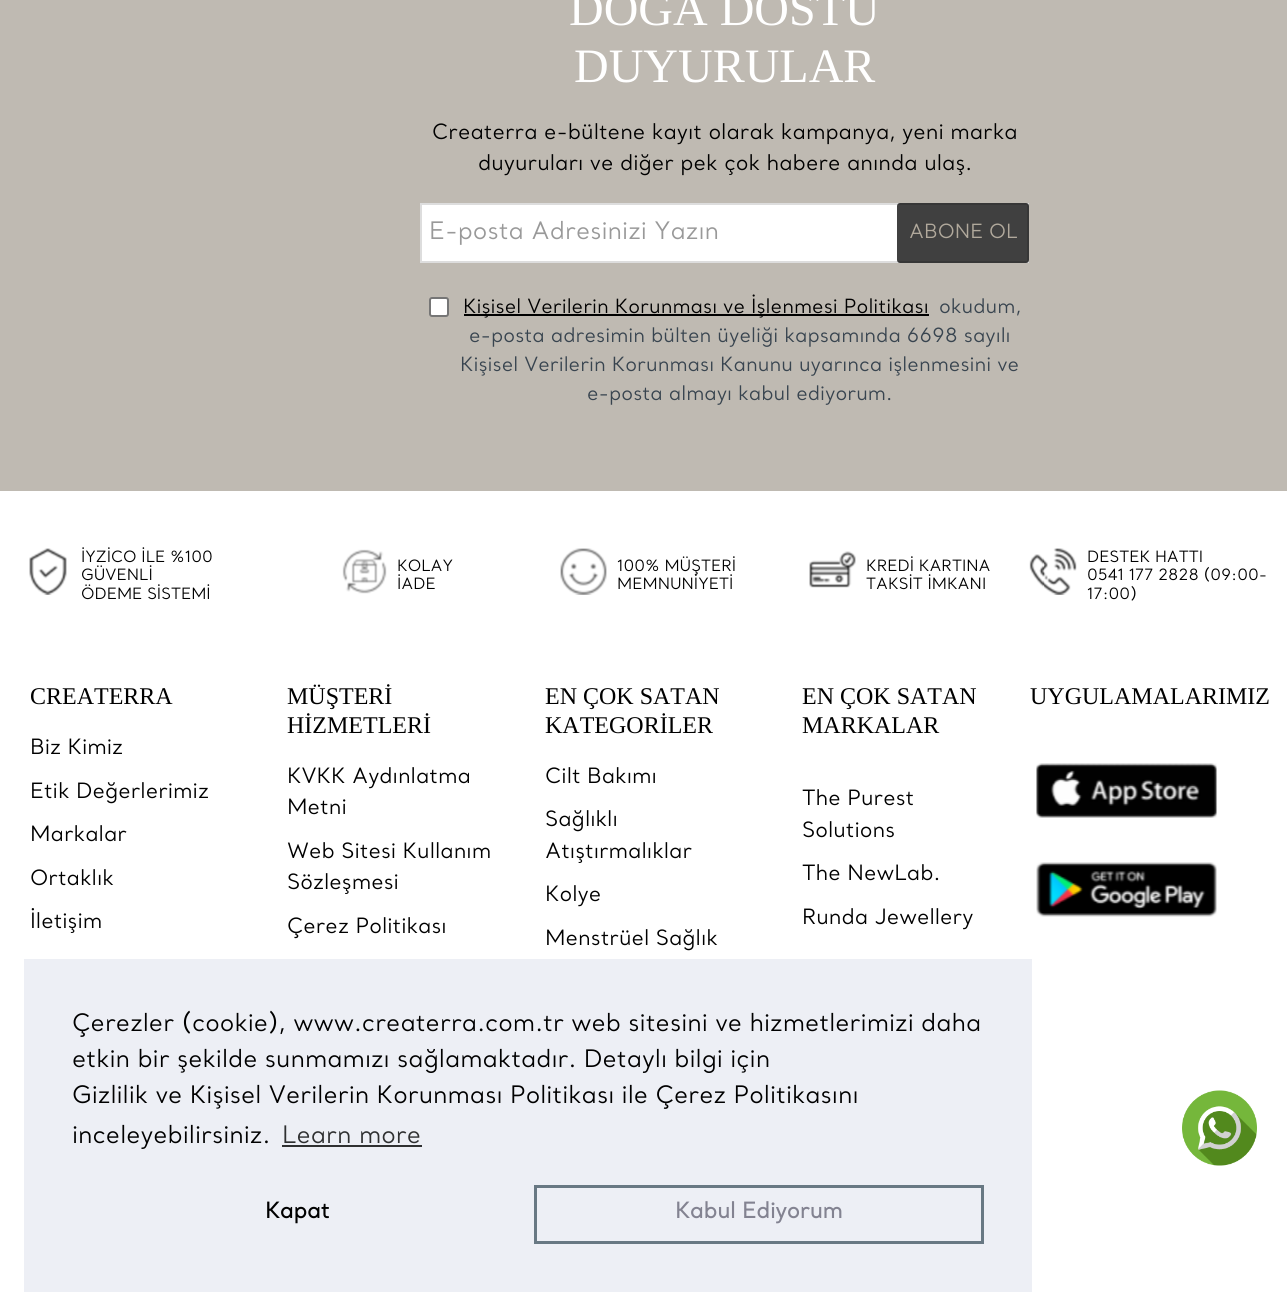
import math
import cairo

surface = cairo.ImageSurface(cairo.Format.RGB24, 1287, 1315)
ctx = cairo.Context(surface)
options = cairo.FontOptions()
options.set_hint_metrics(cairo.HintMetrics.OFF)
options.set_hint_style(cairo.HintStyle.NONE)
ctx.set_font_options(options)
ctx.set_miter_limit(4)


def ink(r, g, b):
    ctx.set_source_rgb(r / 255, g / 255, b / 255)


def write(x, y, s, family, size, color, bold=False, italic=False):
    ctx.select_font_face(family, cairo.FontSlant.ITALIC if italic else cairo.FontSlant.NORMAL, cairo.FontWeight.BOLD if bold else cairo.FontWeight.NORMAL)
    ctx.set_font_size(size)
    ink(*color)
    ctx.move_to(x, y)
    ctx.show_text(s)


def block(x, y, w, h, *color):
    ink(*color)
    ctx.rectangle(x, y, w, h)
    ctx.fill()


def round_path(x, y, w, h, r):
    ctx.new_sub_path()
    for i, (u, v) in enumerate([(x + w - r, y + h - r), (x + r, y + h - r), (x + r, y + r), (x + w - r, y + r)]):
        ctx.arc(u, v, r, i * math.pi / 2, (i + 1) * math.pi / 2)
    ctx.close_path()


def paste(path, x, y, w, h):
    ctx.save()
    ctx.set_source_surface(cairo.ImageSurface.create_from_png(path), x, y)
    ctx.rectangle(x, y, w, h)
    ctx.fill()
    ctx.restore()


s1 = dict(family="Liberation Serif", size=48, color=(255, 255, 255))
s2 = dict(family="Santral", size=21, color=(0, 0, 0))
s3 = dict(family="Santral", size=24, color=(153, 153, 153))
s4 = dict(family="Santral", size=19.5, color=(177, 169, 156))
s5 = dict(family="Santral", size=19.5, color=(0, 0, 0))
s6 = dict(family="Santral", size=19.5, color=(56, 68, 79))
s7 = dict(family="Santral", size=15.5, color=(0, 0, 0))
s8 = dict(family="Liberation Serif", size=24, color=(0, 0, 0))
s9 = dict(family="Santral", size=24, color=(0, 0, 0))
s10 = dict(family="Santral", size=24, color=(47, 48, 49))
s11 = dict(family="Santral", size=21.5, color=(0, 0, 0), bold=True)
s12 = dict(family="Santral", size=21.5, color=(131, 131, 145), bold=True)

ink(255, 255, 255)
ctx.paint()
block(0, 0, 1287, 491, 191, 186, 178)
write(569, 25, "DOĞA DOSTU", **s1)
write(574, 82, "DUYURULAR", **s1)
write(432, 139, "Createrra e-bültene kayıt olarak kampanya, yeni marka", **s2)
write(478, 170, "duyuruları ve diğer pek çok habere anında ulaş.", **s2)
ink(255, 255, 255)
ctx.rectangle(421, 204, 607, 58)
ctx.fill_preserve()
ink(221, 221, 221)
ctx.stroke()
write(429, 239, "E-posta Adresinizi Yazın", **s3)
ctx.set_source_rgba(0, 0, 0, 0.75)
round_path(897, 203, 132, 60, 3)
ctx.fill()
write(909, 238, "ABONE OL", **s4)
ink(255, 255, 255)
round_path(430, 298, 18, 18, 2)
ctx.fill_preserve()
ink(118, 118, 118)
ctx.stroke()
block(464, 314, 465, 2, 0, 0, 0)
write(463, 313, "Kişisel Verilerin Korunması ve İşlenmesi Politikası", **s5)
write(939, 313, "okudum,", **s6)
write(469, 342, "e-posta adresimin bülten üyeliği kapsamında 6698 sayılı", **s6)
write(460, 371, "Kişisel Verilerin Korunması Kanunu uyarınca işlenmesini ve", **s6)
write(587, 400, "e-posta almayı kabul ediyorum.", **s6)
paste("pic1.png", 29, 548, 38, 47)
write(81, 562, "İYZİCO İLE %100", **s7)
write(81, 580, "GÜVENLİ", **s7)
write(81, 599, "ÖDEME SİSTEMİ", **s7)
paste("pic2.png", 342, 549, 45, 45)
write(397, 571, "KOLAY", **s7)
write(397, 589, "İADE", **s7)
paste("pic3.png", 560, 548, 47, 47)
write(617, 571, "100% MÜŞTERİ", **s7)
write(617, 589, "MEMNUNİYETİ", **s7)
paste("pic4.png", 809, 551, 47, 37)
write(866, 571, "KREDİ KARTINA", **s7)
write(866, 589, "TAKSİT İMKANI", **s7)
paste("pic5.png", 1029, 548, 48, 47)
write(1087, 562, "DESTEK HATTI", **s7)
write(1087, 580, "0541 177 2828 (09:00-", **s7)
write(1087, 599, "17:00)", **s7)
write(30, 704, "CREATERRA", **s8)
write(30, 754, "Biz Kimiz", **s2)
write(30, 798, "Etik Değerlerimiz", **s2)
write(30, 841, "Markalar", **s2)
write(30, 885, "Ortaklık", **s2)
write(30, 928, "İletişim", **s2)
write(287, 704, "MÜŞTERİ", **s8)
write(287, 733, "HİZMETLERİ", **s8)
write(287, 783, "KVKK Aydınlatma", **s2)
write(287, 814, "Metni", **s2)
write(287, 858, "Web Sitesi Kullanım", **s2)
write(287, 889, "Sözleşmesi", **s2)
write(287, 933, "Çerez Politikası", **s2)
write(545, 704, "EN ÇOK SATAN", **s8)
write(545, 733, "KATEGORİLER", **s8)
write(545, 783, "Cilt Bakımı", **s2)
write(545, 826, "Sağlıklı", **s2)
write(545, 858, "Atıştırmalıklar", **s2)
write(545, 901, "Kolye", **s2)
write(545, 945, "Menstrüel Sağlık", **s2)
write(802, 704, "EN ÇOK SATAN", **s8)
write(802, 733, "MARKALAR", **s8)
write(802, 805, "The Purest", **s2)
write(802, 837, "Solutions", **s2)
write(802, 880, "The NewLab.", **s2)
write(802, 924, "Runda Jewellery", **s2)
write(1030, 704, "UYGULAMALARIMIZ", **s8)
paste("pic6.png", 1036, 763, 181, 55)
paste("pic7.png", 1036, 862, 181, 55)
paste("pic8.png", 1182, 1090, 75, 76)
block(24, 959, 1008, 333, 237, 239, 245)
write(72, 1031, "Çerezler (cookie), www.createrra.com.tr web sitesini ve hizmetlerimizi daha", **s9)
write(72, 1067, "etkin bir şekilde sunmamızı sağlamaktadır. Detaylı bilgi için", **s9)
write(72, 1103, "Gizlilik ve Kişisel Verilerin Korunması Politikası ile Çerez Politikasını", **s9)
write(72, 1143, "inceleyebilirsiniz.", **s9)
write(282, 1143, "Learn more", **s10)
block(282, 1145, 140, 2, 47, 48, 49)
write(265, 1218, "Kapat", **s11)
ctx.rectangle(535.5, 1186.5, 447, 56)
ink(104, 120, 131)
ctx.set_line_width(3)
ctx.stroke()
write(675, 1218, "Kabul Ediyorum", **s12)
surface.write_to_png("screenshot.png")
